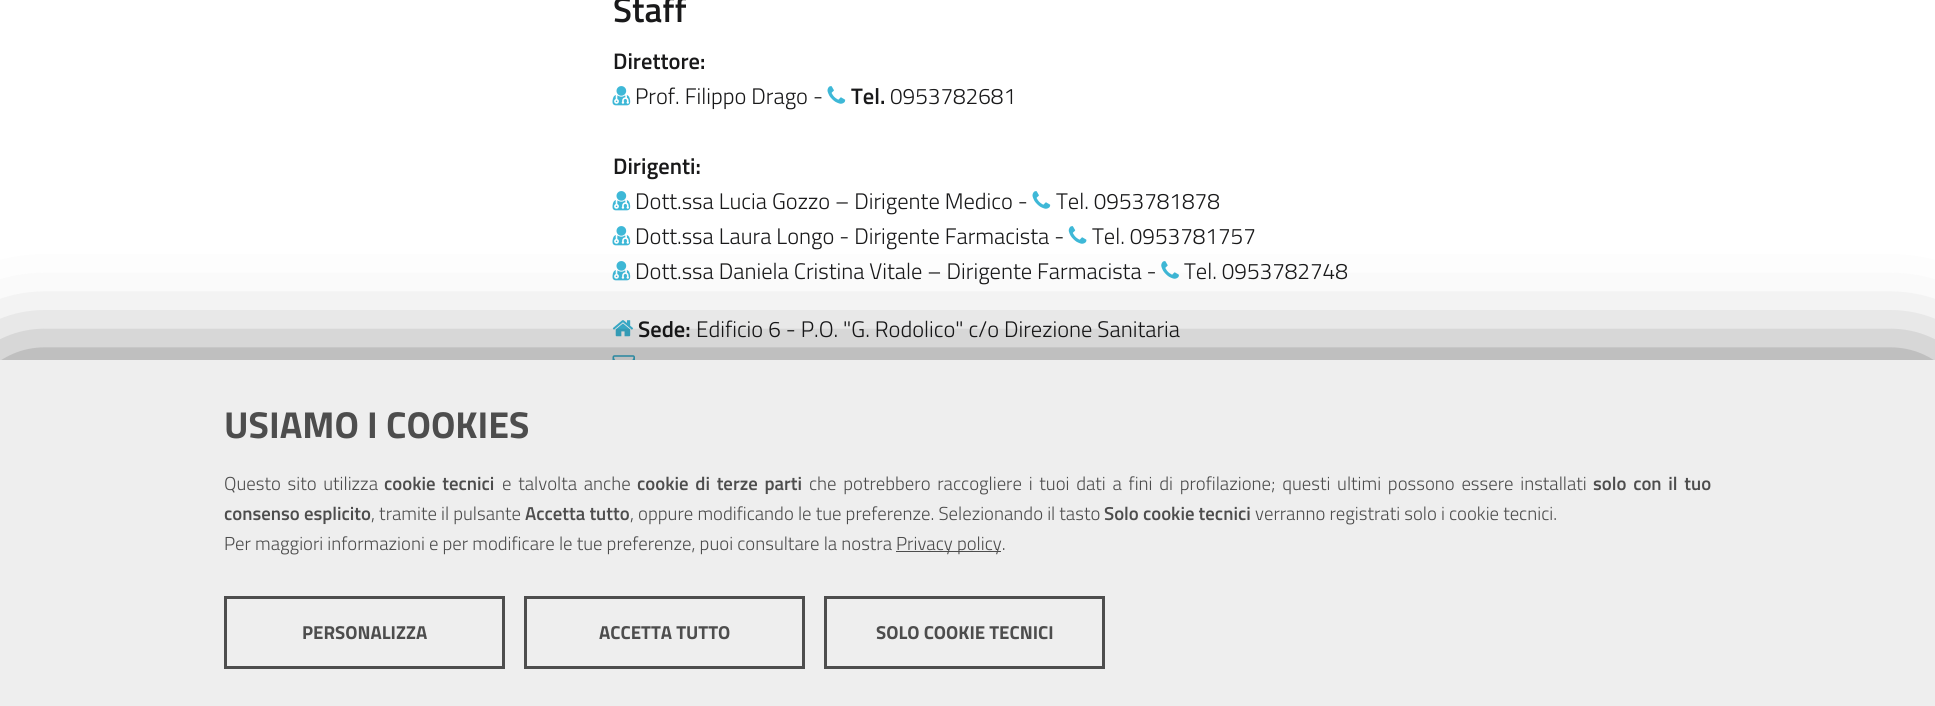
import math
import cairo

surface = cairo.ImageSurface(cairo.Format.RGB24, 1935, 706)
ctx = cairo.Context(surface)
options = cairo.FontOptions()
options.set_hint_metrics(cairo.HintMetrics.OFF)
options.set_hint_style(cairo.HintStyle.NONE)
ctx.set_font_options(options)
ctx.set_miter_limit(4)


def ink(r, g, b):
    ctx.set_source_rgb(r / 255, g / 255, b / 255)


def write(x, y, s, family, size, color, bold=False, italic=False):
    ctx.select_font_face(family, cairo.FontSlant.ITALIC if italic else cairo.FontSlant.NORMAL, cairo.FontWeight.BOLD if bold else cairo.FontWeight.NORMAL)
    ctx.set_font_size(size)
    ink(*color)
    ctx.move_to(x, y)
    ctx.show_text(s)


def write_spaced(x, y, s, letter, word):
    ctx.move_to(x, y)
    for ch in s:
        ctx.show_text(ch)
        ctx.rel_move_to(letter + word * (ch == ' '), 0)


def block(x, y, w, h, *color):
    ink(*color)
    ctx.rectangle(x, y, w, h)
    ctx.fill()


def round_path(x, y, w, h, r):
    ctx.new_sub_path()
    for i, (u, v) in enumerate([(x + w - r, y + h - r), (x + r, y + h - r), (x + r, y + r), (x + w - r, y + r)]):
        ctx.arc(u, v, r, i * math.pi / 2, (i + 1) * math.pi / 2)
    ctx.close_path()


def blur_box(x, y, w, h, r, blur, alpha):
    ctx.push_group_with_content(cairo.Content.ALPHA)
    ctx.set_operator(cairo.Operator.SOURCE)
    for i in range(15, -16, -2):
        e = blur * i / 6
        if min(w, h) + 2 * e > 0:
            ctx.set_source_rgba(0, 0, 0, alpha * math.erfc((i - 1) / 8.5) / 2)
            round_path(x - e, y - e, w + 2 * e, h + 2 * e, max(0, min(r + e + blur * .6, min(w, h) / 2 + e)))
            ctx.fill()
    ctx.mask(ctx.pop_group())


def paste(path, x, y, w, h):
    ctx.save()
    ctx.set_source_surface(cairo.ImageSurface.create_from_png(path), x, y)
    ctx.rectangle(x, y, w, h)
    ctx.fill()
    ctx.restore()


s1 = dict(family="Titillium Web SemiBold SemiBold", size=35, color=(25, 25, 26))
s2 = dict(family="Titillium Web SemiBold SemiBold", size=22.5, color=(25, 25, 26))
s3 = dict(family="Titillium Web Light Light", size=22.5, color=(25, 25, 26))
s4 = dict(family="Titillium Web", size=37.5, color=(77, 77, 77), bold=True)
s5 = dict(family="Titillium Web SemiBold SemiBold", size=18.75, color=(77, 77, 77))
s6 = dict(family="Titillium Web Light Light", size=18.75, color=(77, 77, 77))
s7 = dict(family="Titillium Web", size=18.75, color=(77, 77, 77), bold=True)

ink(255, 255, 255)
ctx.paint()
write(613, 22, "Staff", **s1)
write(613, 69, "Direttore:", **s2)
paste("pic1.png", 612, 86, 19, 20)
write(635, 104, "Prof. Filippo Drago -", **s3)
paste("pic2.png", 827, 86, 19, 18)
write(851, 104, "Tel.", **s2)
write(890, 104, "0953782681", **s3)
write(613, 174, "Dirigenti:", **s2)
paste("pic1.png", 612, 191, 19, 20)
write(635, 209, "Dott.ssa Lucia Gozzo – Dirigente Medico -", **s3)
paste("pic2.png", 1032, 191, 19, 18)
write(1056, 209, "Tel. 0953781878", **s3)
paste("pic1.png", 612, 226, 19, 20)
write(635, 244, "Dott.ssa Laura Longo - Dirigente Farmacista -", **s3)
paste("pic3.png", 1068, 226, 19, 18)
write(1092, 244, "Tel. 0953781757", **s3)
paste("pic1.png", 612, 261, 19, 20)
write(635, 279, "Dott.ssa Daniela Cristina Vitale – Dirigente Farmacista -", **s3)
paste("pic4.png", 1161, 261, 18, 18)
write(1184, 279, "Tel. 0953782748", **s3)
paste("pic5.png", 612, 320, 21, 17)
write(638, 337, "Sede:", **s2)
write(696, 337, "Edificio 6 - P.O. \"G. Rodolico\" c/o Direzione Sanitaria", **s3)
paste("pic6.png", 612, 355, 23, 5)
ink(0, 0, 0)
blur_box(11, 394, 1913, 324, 0, 56, 1)
block(0, 360, 1935, 346, 238, 238, 238)
write(224, 438, "USIAMO I COOKIES", **s4)
ctx.select_font_face("Titillium Web Light Light")
ctx.set_font_size(18.75)
write_spaced(224, 490, "Questo sito utilizza", 0, 2.6)
ctx.select_font_face("Titillium Web SemiBold SemiBold")
write_spaced(384, 490, "cookie tecnici", 0, 2.6)
ctx.select_font_face("Titillium Web Light Light")
write_spaced(502, 490, "e talvolta anche", 0, 2.6)
ctx.select_font_face("Titillium Web SemiBold SemiBold")
write_spaced(637, 490, "cookie di terze parti", 0, 2.6)
ctx.select_font_face("Titillium Web Light Light")
write_spaced(809, 490, "che potrebbero raccogliere i tuoi dati a fini di profilazione; questi ultimi possono essere installati", 0, 2.6)
ctx.select_font_face("Titillium Web SemiBold SemiBold")
write_spaced(1593, 490, "solo con il tuo", 0, 2.6)
write(224, 520, "consenso esplicito", **s5)
write(371, 520, ", tramite il pulsante", **s6)
write(525, 520, "Accetta tutto", **s5)
write(630, 520, ", oppure modificando le tue preferenze. Selezionando il tasto", **s6)
write(1104, 520, "Solo cookie tecnici", **s5)
write(1255, 520, "verranno registrati solo i cookie tecnici.", **s6)
write(224, 550, "Per maggiori informazioni e per modificare le tue preferenze, puoi consultare la nostra", **s6)
block(896, 551, 105, 1, 77, 77, 77)
write(896, 550, "Privacy policy.", **s6)
ctx.rectangle(225.5, 597.5, 278, 70)
ctx.set_line_width(3)
ctx.stroke()
write(302, 639, "PERSONALIZZA", **s7)
ctx.rectangle(525.5, 597.5, 278, 70)
ctx.stroke()
write(599, 639, "ACCETTA TUTTO", **s7)
ctx.rectangle(825.5, 597.5, 278, 70)
ctx.stroke()
write(876, 639, "SOLO COOKIE TECNICI", **s7)
surface.write_to_png("screenshot.png")
